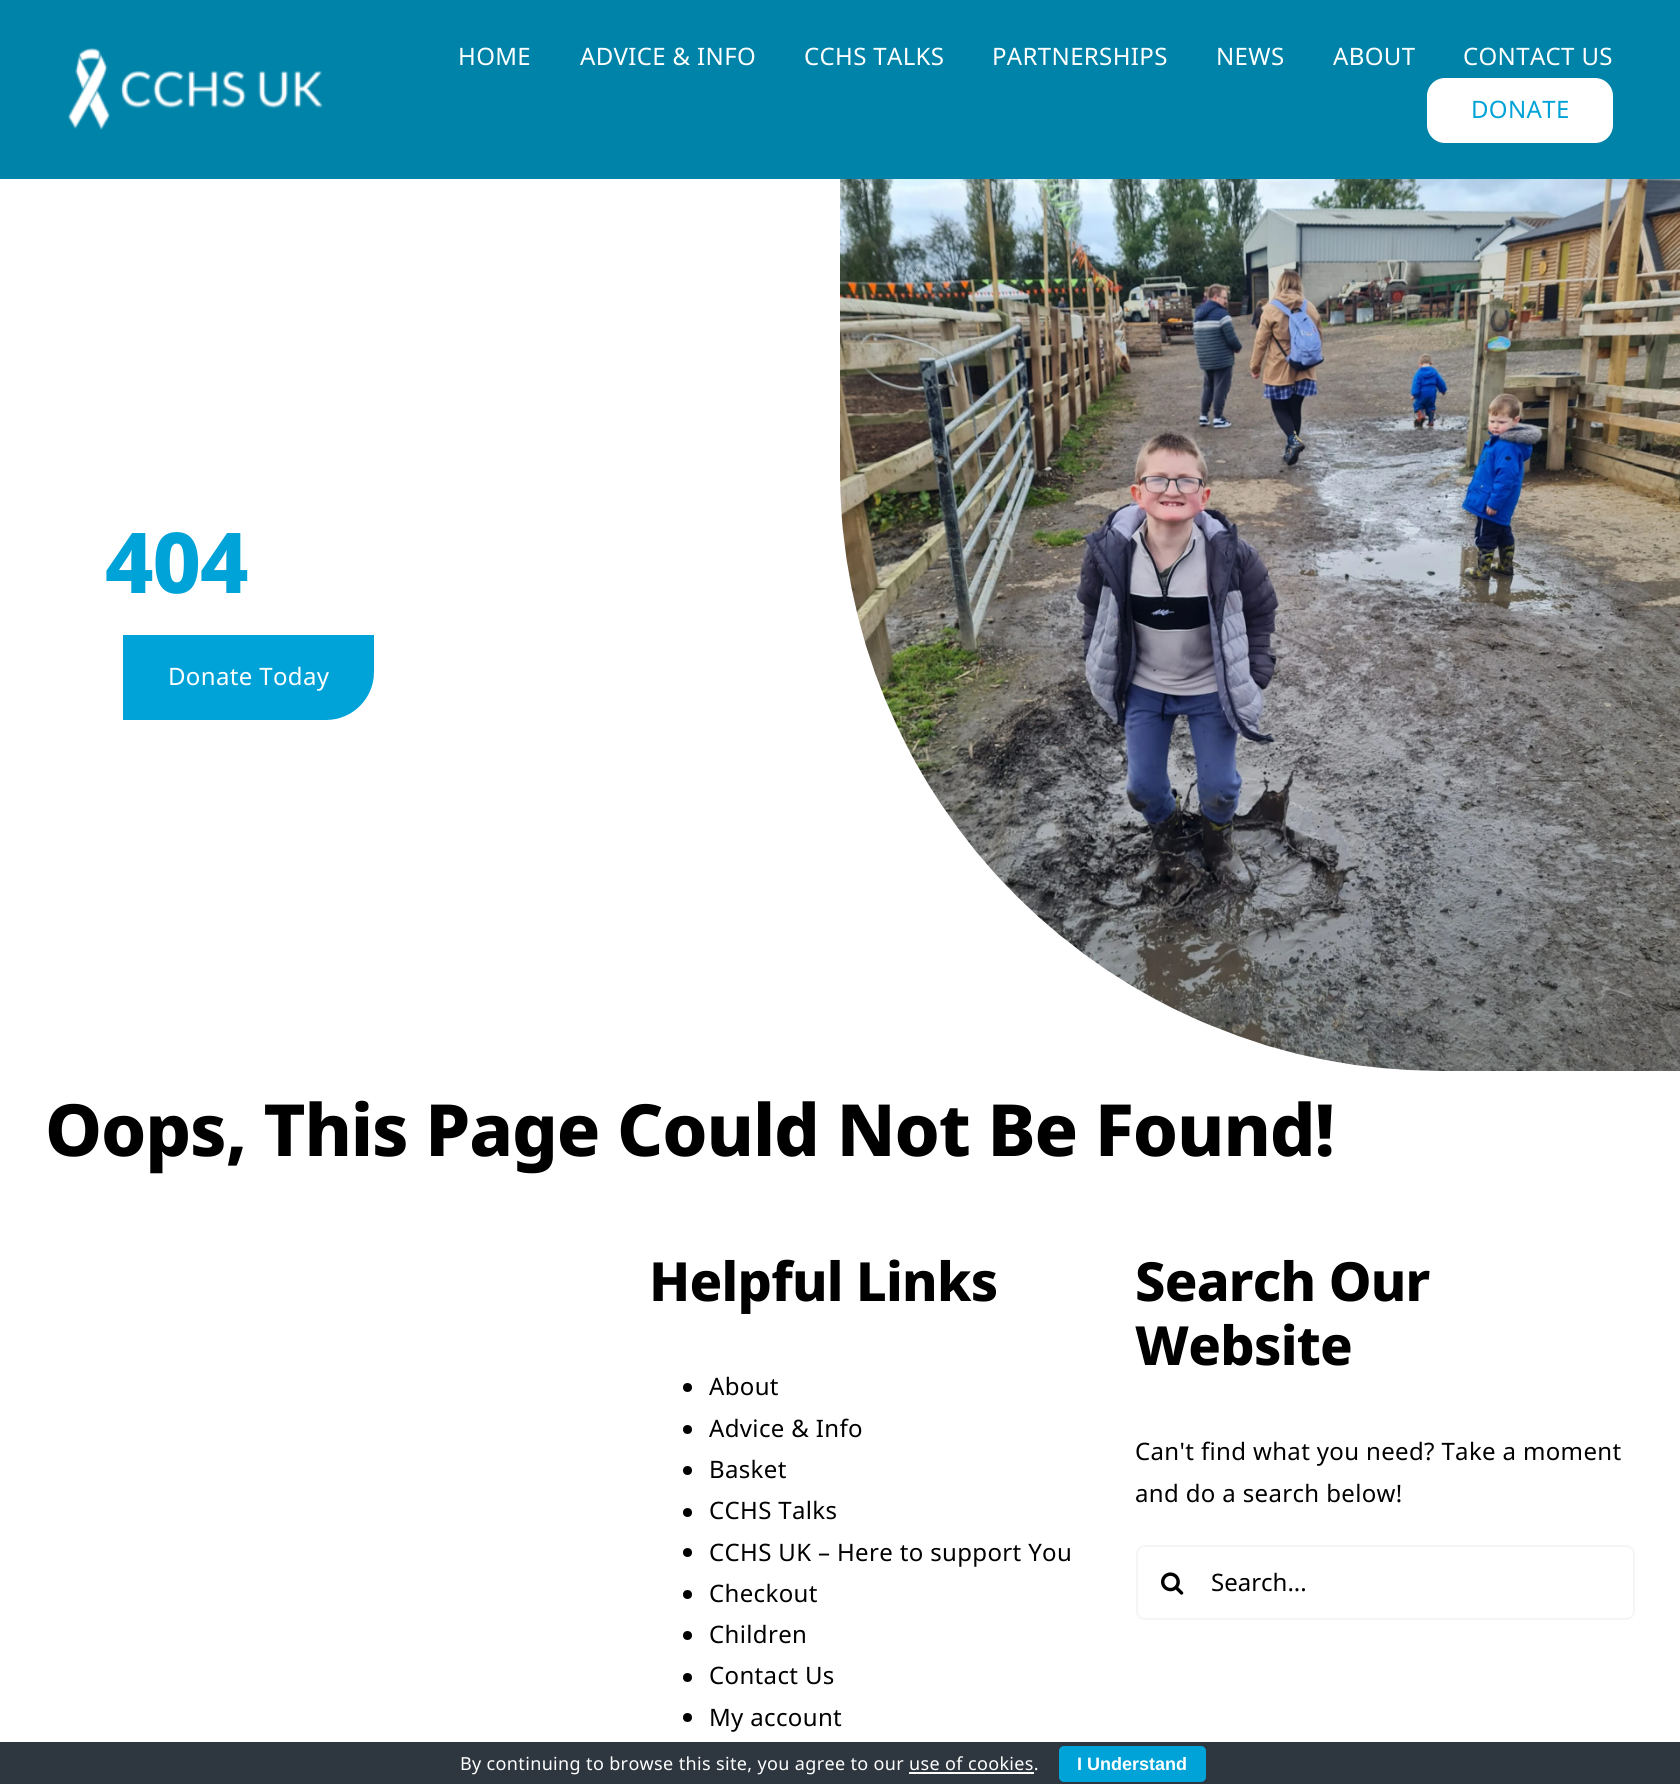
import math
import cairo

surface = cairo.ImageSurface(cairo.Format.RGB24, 1680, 1784)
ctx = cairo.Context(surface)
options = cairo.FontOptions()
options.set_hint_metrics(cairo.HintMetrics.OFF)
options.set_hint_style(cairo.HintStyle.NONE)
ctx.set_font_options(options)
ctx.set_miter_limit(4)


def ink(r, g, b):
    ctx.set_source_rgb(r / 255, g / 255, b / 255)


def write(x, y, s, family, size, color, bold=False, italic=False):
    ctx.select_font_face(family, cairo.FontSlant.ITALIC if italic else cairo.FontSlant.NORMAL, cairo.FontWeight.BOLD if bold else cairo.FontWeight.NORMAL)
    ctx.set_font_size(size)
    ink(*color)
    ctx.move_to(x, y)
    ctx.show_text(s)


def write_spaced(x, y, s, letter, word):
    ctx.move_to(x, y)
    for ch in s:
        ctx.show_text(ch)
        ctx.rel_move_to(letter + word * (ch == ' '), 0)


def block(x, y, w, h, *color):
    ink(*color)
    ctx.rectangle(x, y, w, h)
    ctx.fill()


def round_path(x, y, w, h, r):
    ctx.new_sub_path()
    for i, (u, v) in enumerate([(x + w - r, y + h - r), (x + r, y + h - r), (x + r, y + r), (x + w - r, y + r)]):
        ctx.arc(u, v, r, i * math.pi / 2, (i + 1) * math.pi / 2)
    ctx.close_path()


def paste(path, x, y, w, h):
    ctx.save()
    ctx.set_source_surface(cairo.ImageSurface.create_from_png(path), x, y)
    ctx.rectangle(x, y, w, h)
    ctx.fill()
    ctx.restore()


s1 = dict(family="Noto Sans", size=24, color=(0, 0, 0))
s2 = dict(family="Liberation Sans", size=18, color=(255, 255, 255), bold=True)

ink(255, 255, 255)
ctx.paint()
block(0, 0, 1680, 179, 0, 131, 168)
paste("pic1.png", 68, 48, 255, 82)
ctx.select_font_face("Noto Sans")
ctx.set_font_size(24)
ink(255, 255, 255)
write_spaced(458, 65, "HOME", 0.35, 0)
write_spaced(580, 65, "ADVICE & INFO", 0.35, 0)
write_spaced(804, 65, "CCHS TALKS", 0.35, 0)
write_spaced(992, 65, "PARTNERSHIPS", 0.35, 0)
write_spaced(1216, 65, "NEWS", 0.35, 0)
write_spaced(1333, 65, "ABOUT", 0.35, 0)
write_spaced(1463, 65, "CONTACT US", 0.35, 0)
round_path(1427, 78, 186, 65, 18)
ctx.fill()
ink(0, 163, 215)
write_spaced(1471, 118, "DONATE", 0.35, 0)
ctx.select_font_face("Noto Sans ExtraBold")
ctx.set_font_size(84)
write_spaced(105, 593, "404", -1, 0)
ctx.new_path()
ctx.move_to(123, 635)
ctx.line_to(374, 635)
ctx.line_to(374, 672)
ctx.curve_to(374, 698.5, 352.5, 720, 326, 720)
ctx.line_to(123, 720)
ctx.close_path()
ctx.fill()
ctx.select_font_face("Noto Sans")
ctx.set_font_size(24)
ink(255, 255, 255)
write_spaced(168, 685, "Donate Today", 0.35, 0)
paste("pic2.png", 840, 179, 840, 892)
ctx.select_font_face("Noto Sans ExtraBold")
ctx.set_font_size(72)
ink(0, 0, 0)
write_spaced(45, 1156, "Oops, This Page Could Not Be Found!", -1.1, 0)
ctx.set_font_size(54)
write_spaced(649, 1301, "Helpful Links", -0.75, 0)
ctx.new_path()
ctx.arc(687.5, 1387.5, 4.5, 0, 2 * math.pi)
ctx.fill()
ctx.select_font_face("Noto Sans")
ctx.set_font_size(24)
write_spaced(709, 1395, "About", 0.35, 0)
ctx.new_path()
ctx.arc(687.5, 1429.5, 4.5, 0, 2 * math.pi)
ctx.fill()
write_spaced(709, 1437, "Advice & Info", 0.35, 0)
ctx.new_path()
ctx.arc(687.5, 1470.5, 4.5, 0, 2 * math.pi)
ctx.fill()
write_spaced(709, 1478, "Basket", 0.35, 0)
ctx.new_path()
ctx.arc(687.5, 1512.5, 4.5, 0, 2 * math.pi)
ctx.fill()
write_spaced(709, 1519, "CCHS Talks", 0.35, 0)
ctx.new_path()
ctx.arc(687.5, 1552.5, 4.5, 0, 2 * math.pi)
ctx.fill()
write_spaced(709, 1561, "CCHS UK – Here to support You", 0.35, 0)
ctx.new_path()
ctx.arc(687.5, 1594.5, 4.5, 0, 2 * math.pi)
ctx.fill()
write_spaced(709, 1602, "Checkout", 0.35, 0)
ctx.new_path()
ctx.arc(687.5, 1635.5, 4.5, 0, 2 * math.pi)
ctx.fill()
write_spaced(709, 1643, "Children", 0.35, 0)
ctx.new_path()
ctx.arc(687.5, 1677.5, 4.5, 0, 2 * math.pi)
ctx.fill()
write_spaced(709, 1684, "Contact Us", 0.35, 0)
ctx.new_path()
ctx.arc(687.5, 1717.5, 4.5, 0, 2 * math.pi)
ctx.fill()
write_spaced(709, 1726, "My account", 0.35, 0)
ctx.select_font_face("Noto Sans ExtraBold")
ctx.set_font_size(54)
write_spaced(1135, 1301, "Search Our", -0.75, 0)
write_spaced(1135, 1365, "Website", -0.75, 0)
ctx.select_font_face("Noto Sans")
ctx.set_font_size(24)
write_spaced(1135, 1460, "Can't find what you need? Take a moment", 0.35, 0)
write_spaced(1135, 1502, "and do a search below!", 0.35, 0)
round_path(1137, 1546, 497, 73, 8)
ink(247, 244, 244)
ctx.stroke()
paste("pic3.png", 1161, 1572, 23, 23)
write(1211, 1591, "Search...", **s1)
block(0, 1742, 1680, 42, 46, 54, 63)
ctx.set_font_size(18)
ink(255, 255, 255)
write_spaced(460, 1770, "By continuing to browse this site, you agree to our use of cookies.", 0.35, 0)
ink(0, 163, 215)
round_path(1059, 1746, 147, 36, 5)
ctx.fill()
write(1077, 1770, "I Understand", **s2)
block(909, 1772, 125, 2, 255, 255, 255)
surface.write_to_png("screenshot.png")
